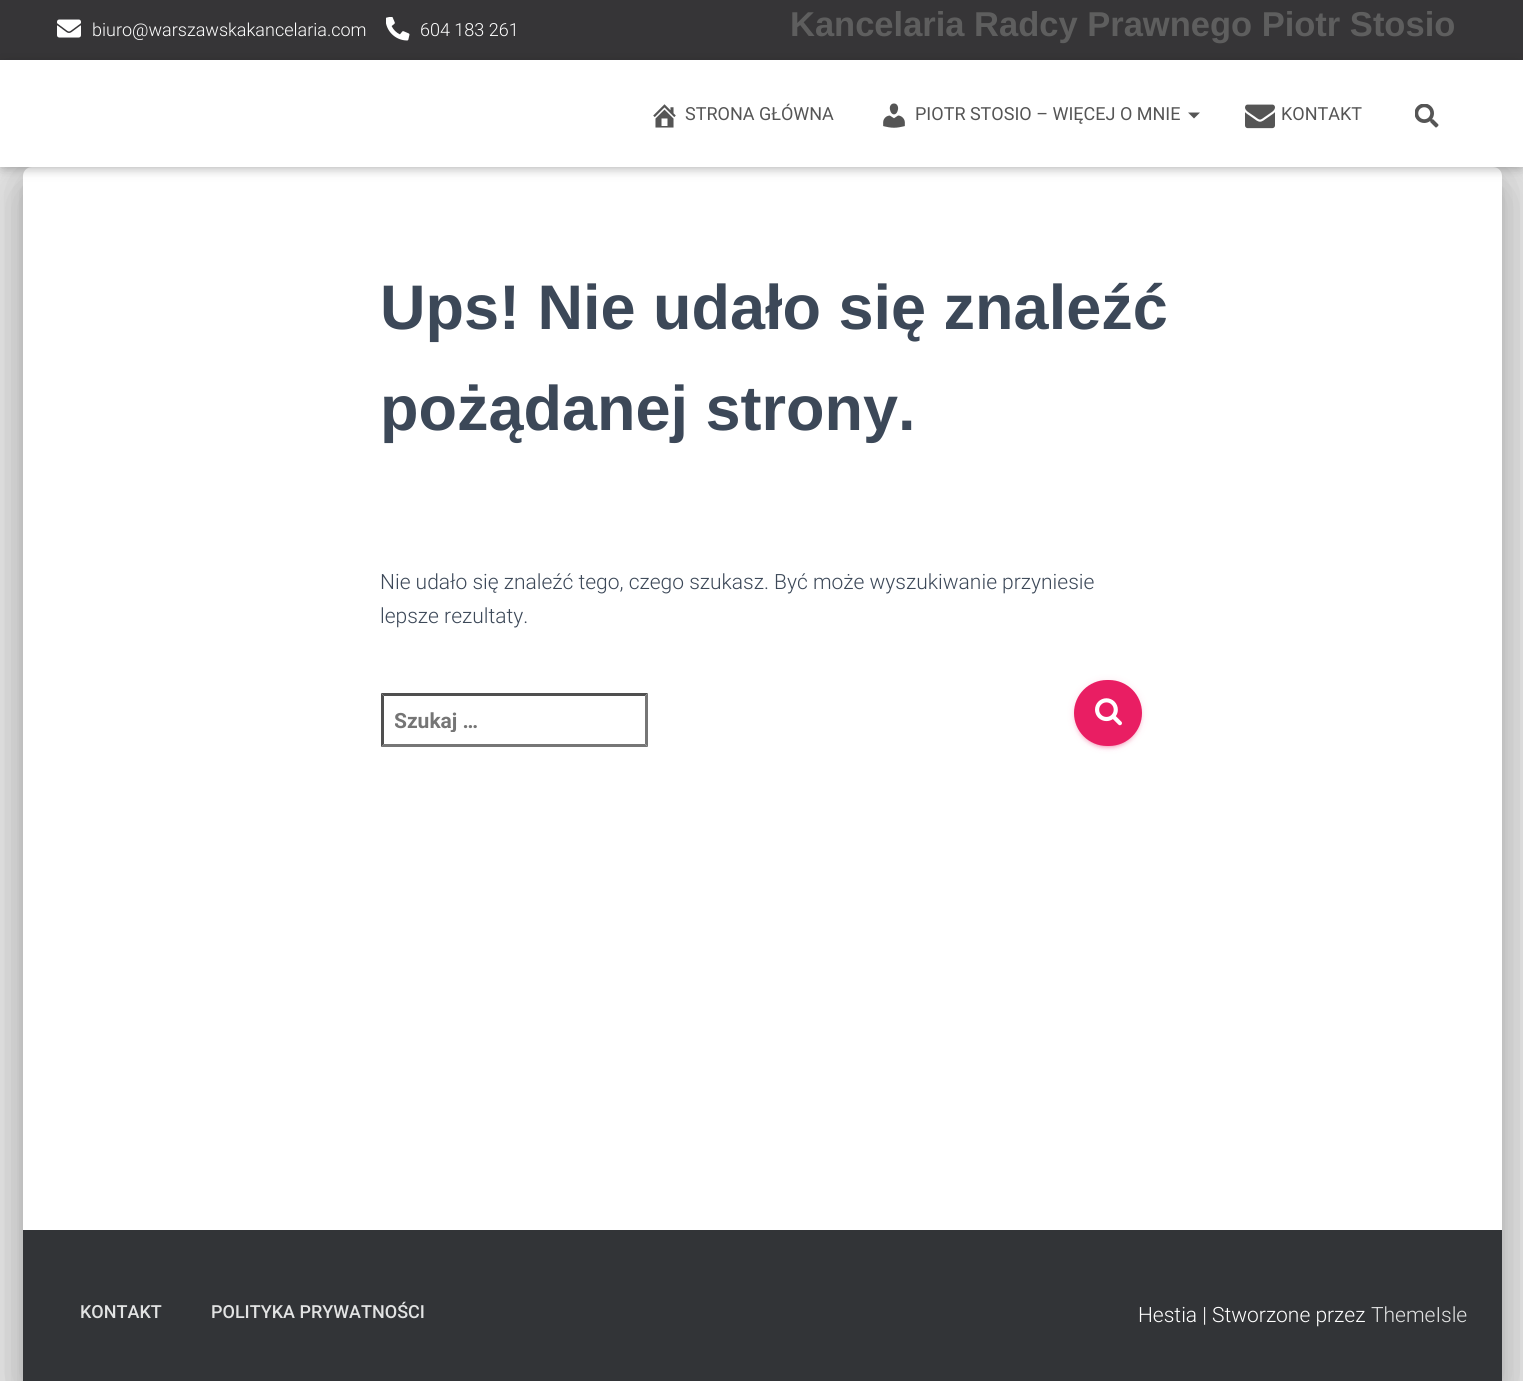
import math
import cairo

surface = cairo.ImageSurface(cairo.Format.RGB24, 1523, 1381)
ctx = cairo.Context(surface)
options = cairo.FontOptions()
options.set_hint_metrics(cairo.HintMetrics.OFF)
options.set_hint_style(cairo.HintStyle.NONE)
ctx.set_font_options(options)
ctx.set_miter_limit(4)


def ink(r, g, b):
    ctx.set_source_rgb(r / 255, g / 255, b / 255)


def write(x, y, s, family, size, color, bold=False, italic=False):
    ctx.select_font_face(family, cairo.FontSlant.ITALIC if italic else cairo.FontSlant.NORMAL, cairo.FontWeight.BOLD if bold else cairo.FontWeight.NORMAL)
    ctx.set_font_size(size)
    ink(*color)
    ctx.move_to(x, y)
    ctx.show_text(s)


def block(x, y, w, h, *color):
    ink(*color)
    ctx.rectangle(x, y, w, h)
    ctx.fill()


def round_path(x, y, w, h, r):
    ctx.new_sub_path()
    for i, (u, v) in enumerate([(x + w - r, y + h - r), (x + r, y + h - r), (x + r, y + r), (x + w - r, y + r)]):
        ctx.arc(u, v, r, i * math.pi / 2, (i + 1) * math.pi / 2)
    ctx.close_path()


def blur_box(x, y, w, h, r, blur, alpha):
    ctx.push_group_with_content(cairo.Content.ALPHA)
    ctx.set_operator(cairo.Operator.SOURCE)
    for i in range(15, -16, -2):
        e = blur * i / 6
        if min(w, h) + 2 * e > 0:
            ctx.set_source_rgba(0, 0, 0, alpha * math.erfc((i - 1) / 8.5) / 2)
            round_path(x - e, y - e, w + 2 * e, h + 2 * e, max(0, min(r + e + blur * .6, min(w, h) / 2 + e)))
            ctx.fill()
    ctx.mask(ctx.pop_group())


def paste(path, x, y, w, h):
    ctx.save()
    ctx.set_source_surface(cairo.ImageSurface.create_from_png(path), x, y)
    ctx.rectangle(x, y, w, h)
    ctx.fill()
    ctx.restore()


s1 = dict(family="Roboto Light", size=18, color=(255, 255, 255))
s2 = dict(family="Liberation Sans", size=34.5, color=(94, 94, 94), bold=True)
s3 = dict(family="Roboto", size=18, color=(85, 85, 85))
s4 = dict(family="Liberation Sans", size=63, color=(60, 72, 88), bold=True)
s5 = dict(family="Roboto Light", size=21, color=(60, 72, 88))
s6 = dict(family="Roboto", size=21, color=(117, 117, 117), bold=True)
s7 = dict(family="Roboto Medium", size=18, color=(226, 227, 227))
s8 = dict(family="Roboto Light", size=21, color=(255, 255, 255))
s9 = dict(family="Roboto Light", size=21, color=(226, 227, 227))

ink(229, 229, 229)
ctx.paint()
block(0, 0, 1523, 60, 54, 53, 55)
paste("pic1.png", 57, 19, 24, 19)
write(92, 36, "biuro@warszawskakancelaria.com", **s1)
paste("pic2.png", 386, 17, 24, 24)
write(420, 36, "604 183 261", **s1)
write(790, 36, "Kancelaria Radcy Prawnego Piotr Stosio", **s2)
ink(0, 0, 0)
blur_box(30, 186, 1464, 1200, 1.5, 7.5, 0.2)
blur_box(15, 168, 1494, 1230, 17, 22.5, 0.12)
blur_box(20, 188, 1485, 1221, 12, 18, 0.14)
ink(255, 255, 255)
ctx.new_path()
ctx.move_to(32, 167)
ctx.line_to(1493, 167)
ctx.curve_to(1498, 167, 1502, 171, 1502, 176)
ctx.line_to(1502, 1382)
ctx.line_to(23, 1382)
ctx.line_to(23, 176)
ctx.curve_to(23, 171, 27, 167, 32, 167)
ctx.close_path()
ctx.fill()
ink(0, 0, 0)
blur_box(3, 69, 1518, 101, 0, 4, 0.1)
blur_box(0, 62, 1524, 106, 0, 7.5, 0.12)
blur_box(9, 71, 1506, 88, 0, 7.5, 0.42)
block(0, 60, 1523, 107, 255, 255, 255)
paste("pic3.png", 653, 104, 23, 24)
write(685, 120, "STRONA GŁÓWNA", **s3)
paste("pic4.png", 883, 103, 22, 25)
write(915, 120, "PIOTR STOSIO – WIĘCEJ O MNIE", **s3)
ctx.new_path()
ctx.move_to(1188, 112.5)
ctx.line_to(1200, 112.5)
ctx.line_to(1194, 118.5)
ctx.close_path()
ctx.fill()
paste("pic5.png", 1245, 104, 30, 25)
write(1281, 120, "KONTAKT", **s3)
paste("pic6.png", 1415, 104, 24, 24)
write(380, 329, "Ups! Nie udało się znaleźć", **s4)
write(380, 430, "pożądanej strony.", **s4)
write(380, 589, "Nie udało się znaleźć tego, czego szukasz. Być może wyszukiwanie przyniesie", **s5)
write(380, 623, "lepsze rezultaty.", **s5)
ink(79, 79, 79)
ctx.new_path()
ctx.move_to(381, 693)
ctx.line_to(648, 693)
ctx.line_to(645, 696)
ctx.line_to(384, 696)
ctx.close_path()
ctx.fill()
ink(118, 118, 118)
ctx.new_path()
ctx.move_to(648, 693)
ctx.line_to(648, 747)
ctx.line_to(645, 744)
ctx.line_to(645, 696)
ctx.close_path()
ctx.fill()
ctx.new_path()
ctx.move_to(648, 747)
ctx.line_to(381, 747)
ctx.line_to(384, 744)
ctx.line_to(645, 744)
ctx.close_path()
ctx.fill()
ink(79, 79, 79)
ctx.new_path()
ctx.move_to(381, 747)
ctx.line_to(381, 693)
ctx.line_to(384, 696)
ctx.line_to(384, 744)
ctx.close_path()
ctx.fill()
ctx.save()
ctx.rectangle(395, 708, 234, 24)
ctx.clip()
write(394, 728, "Szukaj …", **s6)
ctx.restore()
ink(233, 30, 99)
blur_box(1074, 681, 68, 66, 33, 4, 0.12)
blur_box(1077, 687, 62, 60, 30, 1, 0.2)
blur_box(1074, 683, 68, 66, 33, 1.5, 0.14)
ink(233, 30, 99)
round_path(1074, 680, 68, 66, 33)
ctx.fill()
paste("pic7.png", 1095, 698, 27, 28)
block(23, 1230, 1479, 151, 50, 52, 55)
write(80, 1318, "KONTAKT", **s7)
write(211, 1318, "POLITYKA PRYWATNOŚCI", **s7)
write(1138, 1322, "Hestia | Stworzone przez", **s8)
write(1371, 1322, "ThemeIsle", **s9)
surface.write_to_png("screenshot.png")
